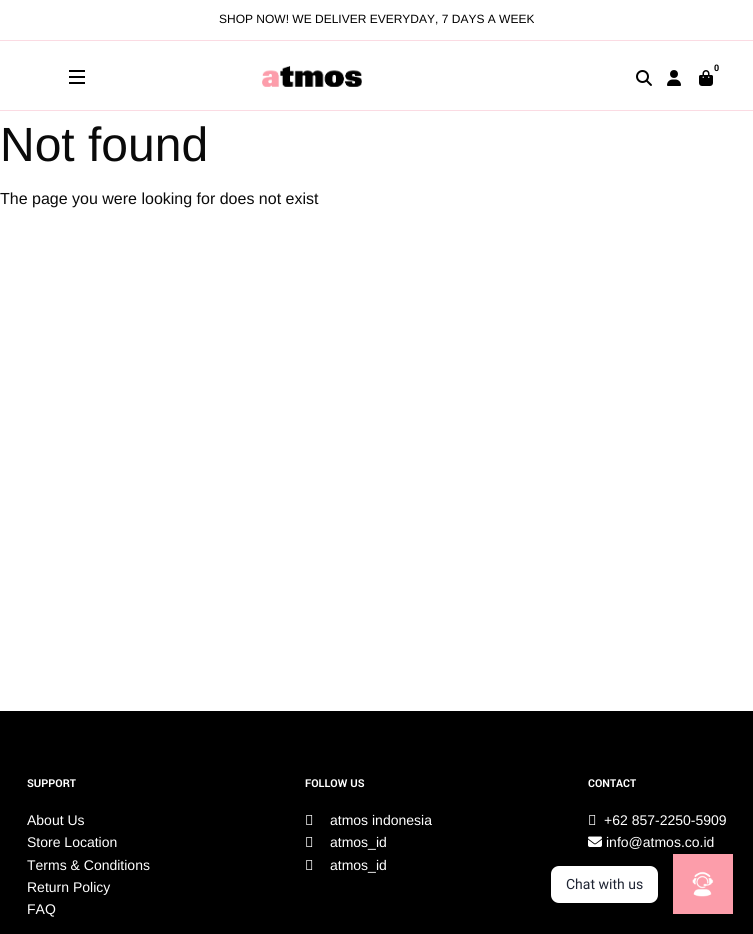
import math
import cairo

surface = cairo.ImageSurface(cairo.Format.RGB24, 753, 934)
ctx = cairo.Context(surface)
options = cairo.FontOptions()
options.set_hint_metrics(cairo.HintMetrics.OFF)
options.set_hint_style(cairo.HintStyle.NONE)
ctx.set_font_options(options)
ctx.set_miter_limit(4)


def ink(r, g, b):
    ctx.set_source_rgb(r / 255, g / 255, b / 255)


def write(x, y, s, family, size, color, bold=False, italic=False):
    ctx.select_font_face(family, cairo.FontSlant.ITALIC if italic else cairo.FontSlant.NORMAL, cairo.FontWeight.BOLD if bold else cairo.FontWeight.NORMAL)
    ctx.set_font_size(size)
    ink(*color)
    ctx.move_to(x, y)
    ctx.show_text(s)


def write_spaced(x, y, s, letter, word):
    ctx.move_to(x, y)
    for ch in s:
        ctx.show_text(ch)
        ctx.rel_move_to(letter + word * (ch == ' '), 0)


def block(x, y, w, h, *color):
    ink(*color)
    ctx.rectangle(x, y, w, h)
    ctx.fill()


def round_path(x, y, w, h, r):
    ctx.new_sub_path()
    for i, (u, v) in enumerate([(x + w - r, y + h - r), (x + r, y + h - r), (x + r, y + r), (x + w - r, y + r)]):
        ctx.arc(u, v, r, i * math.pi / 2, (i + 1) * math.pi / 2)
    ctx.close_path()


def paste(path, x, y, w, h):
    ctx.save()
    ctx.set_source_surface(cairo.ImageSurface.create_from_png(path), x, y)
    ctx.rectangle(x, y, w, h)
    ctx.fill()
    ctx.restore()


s1 = dict(family="Liberation Sans", size=12, color=(0, 0, 0))
s2 = dict(family="Liberation Sans", size=48, color=(10, 10, 10))
s3 = dict(family="Liberation Sans", size=16, color=(10, 10, 10))
s4 = dict(family="Yantramanav", size=12, color=(255, 255, 255), bold=True)
s5 = dict(family="Liberation Sans", size=14, color=(255, 255, 255))
s6 = dict(family="Roboto", size=14, color=(30, 36, 51))

ink(255, 255, 255)
ctx.paint()
write(219, 23, "SHOP NOW! WE DELIVER EVERYDAY, 7 DAYS A WEEK", **s1)
block(0, 40, 753, 1, 251, 219, 227)
block(69, 70, 16, 2, 0, 0, 0)
block(69, 76, 16, 2, 0, 0, 0)
block(69, 82, 16, 2, 0, 0, 0)
paste("pic1.png", 262, 66, 100, 21)
ctx.select_font_face("Yantramanav", cairo.FontSlant.NORMAL, cairo.FontWeight.BOLD)
ctx.set_font_size(10)
write_spaced(714, 71, "0", 2, 0)
paste("pic2.png", 699, 70, 14, 16)
paste("pic3.png", 636, 70, 16, 16)
paste("pic4.png", 667, 70, 14, 16)
block(0, 110, 753, 1, 251, 219, 227)
write(0, 161, "Not found", **s2)
write(0, 204, "The page you were looking for does not exist", **s3)
block(0, 711, 753, 223, 0, 0, 0)
write(27, 787, "SUPPORT", **s4)
write(27, 825, "About Us", **s5)
write(27, 847, "Store Location", **s5)
write(27, 870, "Terms & Conditions", **s5)
write(27, 892, "Return Policy", **s5)
write(27, 914, "FAQ", **s5)
write(305, 787, "FOLLOW US", **s4)
paste("pic5.png", 306, 815, 7, 10)
write(330, 825, "atmos indonesia", **s5)
paste("pic5.png", 306, 837, 7, 10)
write(330, 847, "atmos_id", **s5)
paste("pic5.png", 306, 860, 7, 10)
write(330, 870, "atmos_id", **s5)
write(588, 787, "CONTACT", **s4)
paste("pic5.png", 589, 815, 7, 10)
write(604, 825, "+62 857-2250-5909", **s5)
paste("pic6.png", 588, 836, 14, 11)
write(606, 847, "info@atmos.co.id", **s5)
block(673, 854, 60, 60, 252, 157, 170)
ink(255, 255, 255)
round_path(551, 866, 107, 37, 8)
ctx.fill()
write(566, 889, "Chat with us", **s6)
paste("pic7.png", 692, 871, 22, 26)
surface.write_to_png("screenshot.png")
